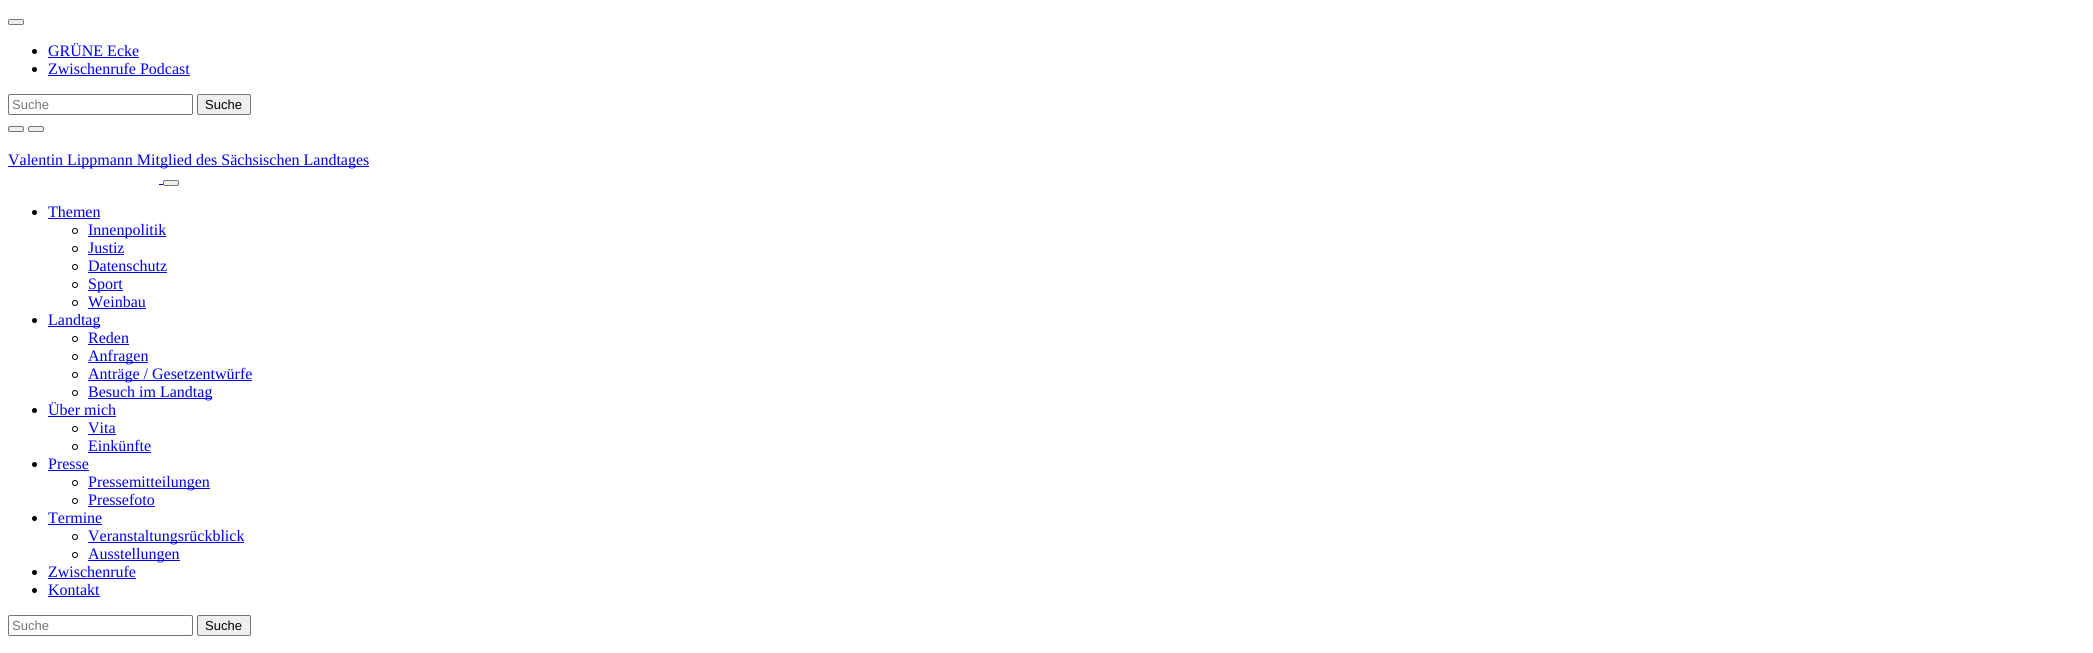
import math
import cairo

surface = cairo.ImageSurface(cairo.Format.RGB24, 2093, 653)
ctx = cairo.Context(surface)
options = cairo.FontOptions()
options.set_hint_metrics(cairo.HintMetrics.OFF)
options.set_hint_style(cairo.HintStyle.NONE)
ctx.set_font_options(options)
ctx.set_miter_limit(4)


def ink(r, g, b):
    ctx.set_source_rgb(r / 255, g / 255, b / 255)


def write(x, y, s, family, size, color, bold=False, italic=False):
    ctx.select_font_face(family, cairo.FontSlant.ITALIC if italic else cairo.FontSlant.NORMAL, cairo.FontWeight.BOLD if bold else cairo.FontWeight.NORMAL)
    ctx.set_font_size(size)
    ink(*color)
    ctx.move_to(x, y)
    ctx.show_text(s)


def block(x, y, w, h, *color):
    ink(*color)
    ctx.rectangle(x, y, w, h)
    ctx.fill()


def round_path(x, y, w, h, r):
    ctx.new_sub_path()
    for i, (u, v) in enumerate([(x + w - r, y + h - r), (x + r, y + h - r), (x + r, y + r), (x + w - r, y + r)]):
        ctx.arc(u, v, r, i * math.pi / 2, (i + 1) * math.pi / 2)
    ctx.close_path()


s1 = dict(family="Liberation Serif", size=16, color=(0, 0, 238))
s2 = dict(family="Liberation Sans", size=13, color=(117, 117, 117))
s3 = dict(family="Liberation Sans", size=13, color=(0, 0, 0))

ink(255, 255, 255)
ctx.paint()
ink(239, 239, 239)
round_path(8.5, 19.5, 15, 5, 1.5)
ctx.fill_preserve()
ink(118, 118, 118)
ctx.set_line_width(1)
ctx.stroke()
ink(0, 0, 0)
ctx.arc(34.5, 51.5, 2.5, 0, 2 * math.pi)
ctx.fill()
write(48, 56, "GRÜNE Ecke", **s1)
block(48, 57, 91, 1, 0, 0, 238)
ink(0, 0, 0)
ctx.new_path()
ctx.arc(34.5, 69.5, 2.5, 0, 2 * math.pi)
ctx.fill()
write(48, 74, "Zwischenrufe Podcast", **s1)
block(48, 75, 142, 1, 0, 0, 238)
round_path(8.5, 94.5, 184, 20, 1.5)
ink(118, 118, 118)
ctx.stroke()
write(12, 109, "Suche", **s2)
ink(239, 239, 239)
round_path(197.5, 94.5, 53, 20, 1.5)
ctx.fill_preserve()
ink(118, 118, 118)
ctx.stroke()
write(205, 109, "Suche", **s3)
ink(239, 239, 239)
round_path(8.5, 126.5, 15, 5, 1.5)
ctx.fill_preserve()
ink(118, 118, 118)
ctx.stroke()
ink(239, 239, 239)
round_path(28.5, 126.5, 15, 5, 1.5)
ctx.fill_preserve()
ink(118, 118, 118)
ctx.stroke()
block(8, 166, 361, 1, 0, 0, 238)
write(8, 165, "Valentin Lippmann Mitglied des Sächsischen Landtages", **s1)
block(159, 184, 4, 1, 0, 0, 238)
ink(239, 239, 239)
round_path(163.5, 180.5, 15, 5, 1.5)
ctx.fill_preserve()
ink(118, 118, 118)
ctx.stroke()
ink(0, 0, 0)
ctx.arc(34.5, 212.5, 2.5, 0, 2 * math.pi)
ctx.fill()
write(48, 217, "Themen", **s1)
block(48, 218, 52, 1, 0, 0, 238)
ctx.new_path()
ctx.arc(75, 231, 2.5, 0, 2 * math.pi)
ink(0, 0, 0)
ctx.stroke()
block(88, 236, 78, 1, 0, 0, 238)
write(88, 235, "Innenpolitik", **s1)
ctx.new_path()
ctx.arc(75, 249, 2.5, 0, 2 * math.pi)
ink(0, 0, 0)
ctx.stroke()
write(88, 253, "Justiz", **s1)
block(88, 254, 36, 1, 0, 0, 238)
ctx.new_path()
ctx.arc(75, 267, 2.5, 0, 2 * math.pi)
ink(0, 0, 0)
ctx.stroke()
write(88, 271, "Datenschutz", **s1)
block(88, 272, 79, 1, 0, 0, 238)
ctx.new_path()
ctx.arc(75, 285, 2.5, 0, 2 * math.pi)
ink(0, 0, 0)
ctx.stroke()
block(88, 290, 35, 1, 0, 0, 238)
write(88, 289, "Sport", **s1)
ctx.new_path()
ctx.arc(75, 303, 2.5, 0, 2 * math.pi)
ink(0, 0, 0)
ctx.stroke()
write(88, 307, "Weinbau", **s1)
block(88, 308, 58, 1, 0, 0, 238)
ink(0, 0, 0)
ctx.new_path()
ctx.arc(34.5, 320.5, 2.5, 0, 2 * math.pi)
ctx.fill()
block(48, 326, 52, 1, 0, 0, 238)
write(48, 325, "Landtag", **s1)
ctx.new_path()
ctx.arc(75, 339, 2.5, 0, 2 * math.pi)
ink(0, 0, 0)
ctx.stroke()
write(88, 343, "Reden", **s1)
block(88, 344, 41, 1, 0, 0, 238)
ctx.new_path()
ctx.arc(75, 357, 2.5, 0, 2 * math.pi)
ink(0, 0, 0)
ctx.stroke()
block(88, 362, 60, 1, 0, 0, 238)
write(88, 361, "Anfragen", **s1)
ctx.new_path()
ctx.arc(75, 375, 2.5, 0, 2 * math.pi)
ink(0, 0, 0)
ctx.stroke()
block(88, 380, 164, 1, 0, 0, 238)
write(88, 379, "Anträge / Gesetzentwürfe", **s1)
ctx.new_path()
ctx.arc(75, 393, 2.5, 0, 2 * math.pi)
ink(0, 0, 0)
ctx.stroke()
block(88, 398, 124, 1, 0, 0, 238)
write(88, 397, "Besuch im Landtag", **s1)
ink(0, 0, 0)
ctx.new_path()
ctx.arc(34.5, 410.5, 2.5, 0, 2 * math.pi)
ctx.fill()
write(48, 415, "Über mich", **s1)
block(48, 416, 68, 1, 0, 0, 238)
ctx.new_path()
ctx.arc(75, 429, 2.5, 0, 2 * math.pi)
ink(0, 0, 0)
ctx.stroke()
write(88, 433, "Vita", **s1)
block(88, 434, 28, 1, 0, 0, 238)
ctx.new_path()
ctx.arc(75, 447, 2.5, 0, 2 * math.pi)
ink(0, 0, 0)
ctx.stroke()
write(88, 451, "Einkünfte", **s1)
block(88, 452, 63, 1, 0, 0, 238)
ink(0, 0, 0)
ctx.new_path()
ctx.arc(34.5, 464.5, 2.5, 0, 2 * math.pi)
ctx.fill()
write(48, 469, "Presse", **s1)
block(48, 470, 41, 1, 0, 0, 238)
ctx.new_path()
ctx.arc(75, 483, 2.5, 0, 2 * math.pi)
ink(0, 0, 0)
ctx.stroke()
block(88, 488, 122, 1, 0, 0, 238)
write(88, 487, "Pressemitteilungen", **s1)
ctx.new_path()
ctx.arc(75, 501, 2.5, 0, 2 * math.pi)
ink(0, 0, 0)
ctx.stroke()
write(88, 505, "Pressefoto", **s1)
block(88, 506, 67, 1, 0, 0, 238)
ink(0, 0, 0)
ctx.new_path()
ctx.arc(34.5, 518.5, 2.5, 0, 2 * math.pi)
ctx.fill()
write(48, 523, "Termine", **s1)
block(48, 524, 54, 1, 0, 0, 238)
ctx.new_path()
ctx.arc(75, 537, 2.5, 0, 2 * math.pi)
ink(0, 0, 0)
ctx.stroke()
block(88, 542, 156, 1, 0, 0, 238)
write(88, 541, "Veranstaltungsrückblick", **s1)
ctx.new_path()
ctx.arc(75, 555, 2.5, 0, 2 * math.pi)
ink(0, 0, 0)
ctx.stroke()
block(88, 560, 92, 1, 0, 0, 238)
write(88, 559, "Ausstellungen", **s1)
ink(0, 0, 0)
ctx.new_path()
ctx.arc(34.5, 572.5, 2.5, 0, 2 * math.pi)
ctx.fill()
write(48, 577, "Zwischenrufe", **s1)
block(48, 578, 88, 1, 0, 0, 238)
ink(0, 0, 0)
ctx.new_path()
ctx.arc(34.5, 590.5, 2.5, 0, 2 * math.pi)
ctx.fill()
write(48, 595, "Kontakt", **s1)
block(48, 596, 52, 1, 0, 0, 238)
round_path(8.5, 615.5, 184, 20, 1.5)
ink(118, 118, 118)
ctx.stroke()
write(12, 630, "Suche", **s2)
ink(239, 239, 239)
round_path(197.5, 615.5, 53, 20, 1.5)
ctx.fill_preserve()
ink(118, 118, 118)
ctx.stroke()
write(205, 630, "Suche", **s3)
surface.write_to_png("screenshot.png")
